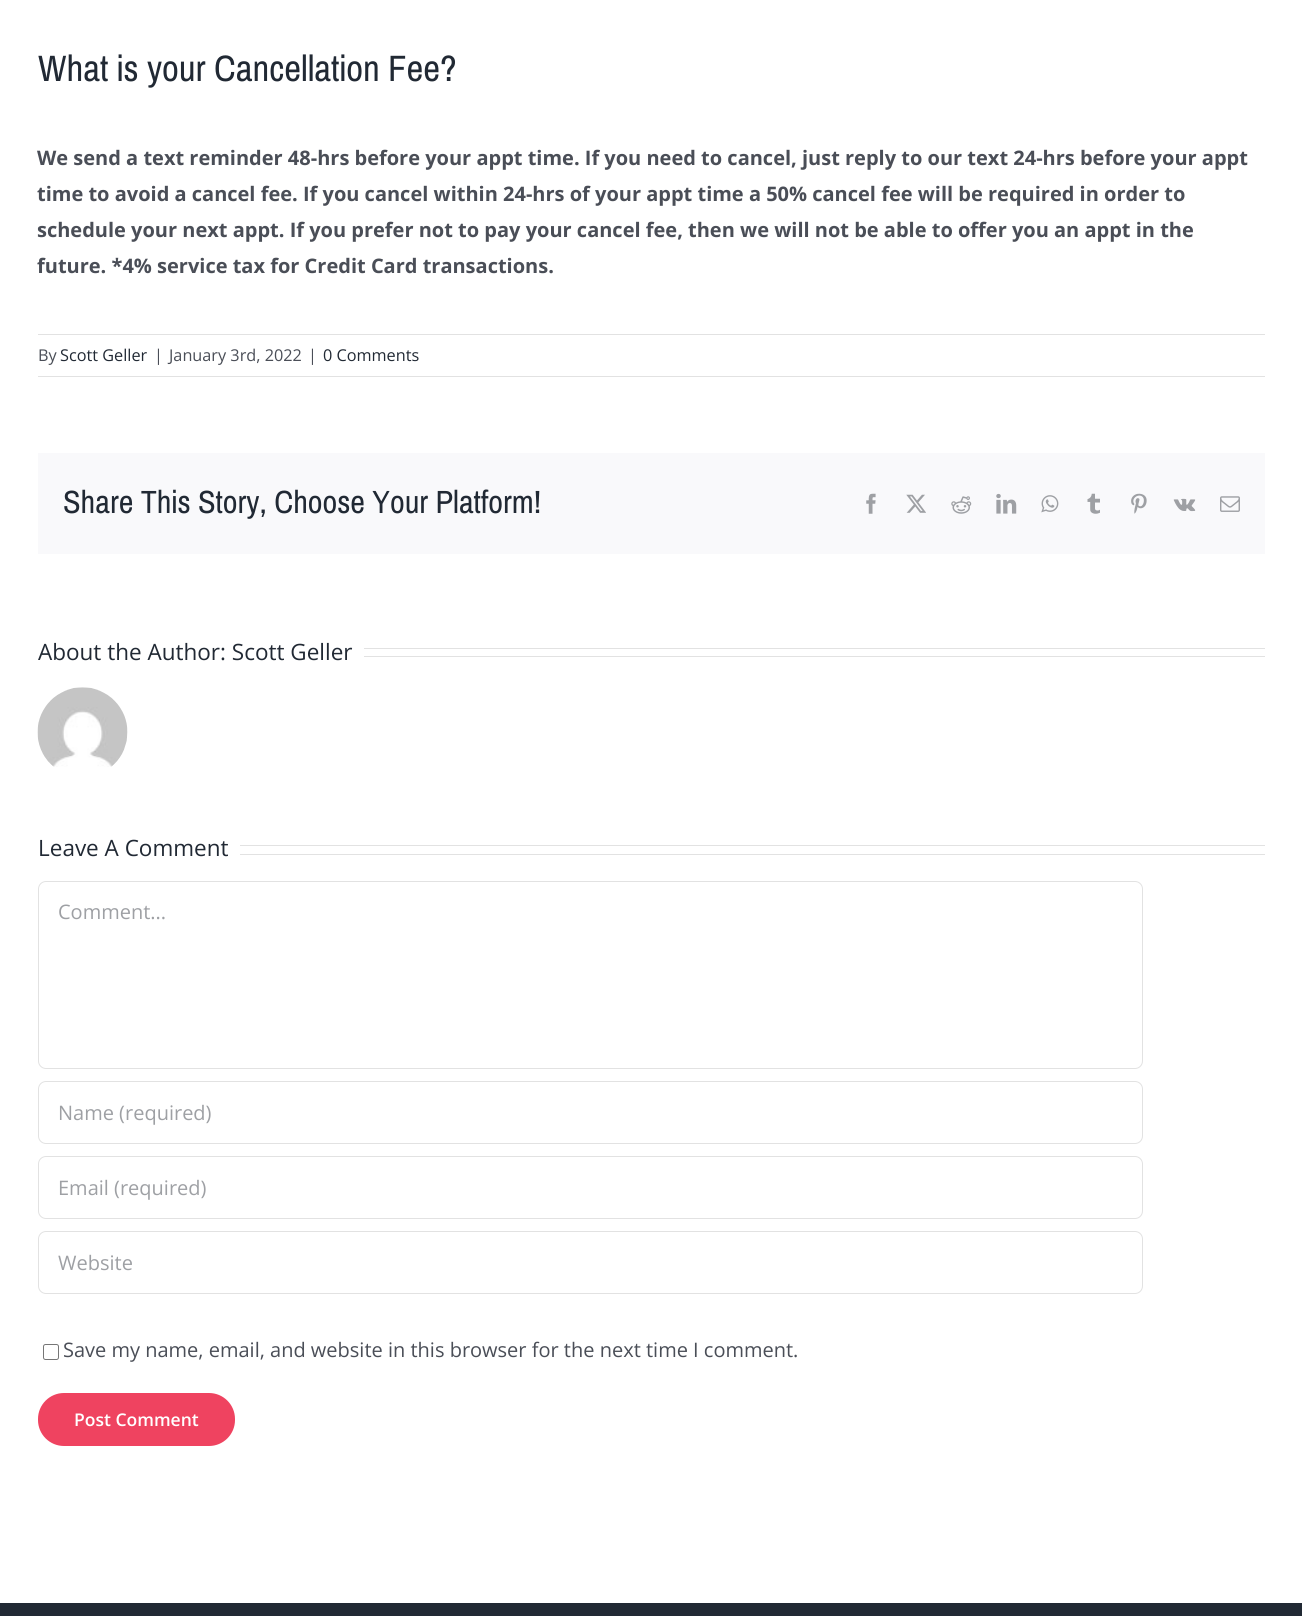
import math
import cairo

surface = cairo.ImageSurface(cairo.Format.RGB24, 1302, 1616)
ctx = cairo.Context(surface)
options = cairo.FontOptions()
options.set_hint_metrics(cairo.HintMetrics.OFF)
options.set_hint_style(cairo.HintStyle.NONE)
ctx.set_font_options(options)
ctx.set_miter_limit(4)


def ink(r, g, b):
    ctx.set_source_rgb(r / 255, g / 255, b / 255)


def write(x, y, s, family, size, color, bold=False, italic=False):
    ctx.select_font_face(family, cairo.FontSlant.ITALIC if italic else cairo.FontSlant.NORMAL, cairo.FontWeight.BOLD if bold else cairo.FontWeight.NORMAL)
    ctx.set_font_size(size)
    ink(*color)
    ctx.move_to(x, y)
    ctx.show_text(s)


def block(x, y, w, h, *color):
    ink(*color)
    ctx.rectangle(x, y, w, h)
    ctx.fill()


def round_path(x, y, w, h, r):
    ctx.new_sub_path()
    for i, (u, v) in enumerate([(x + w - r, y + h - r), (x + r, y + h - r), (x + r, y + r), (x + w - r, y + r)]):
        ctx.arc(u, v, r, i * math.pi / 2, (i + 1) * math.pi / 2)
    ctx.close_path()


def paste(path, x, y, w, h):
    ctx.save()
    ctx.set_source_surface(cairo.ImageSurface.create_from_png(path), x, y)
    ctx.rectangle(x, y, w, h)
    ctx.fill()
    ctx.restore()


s1 = dict(family="Pragati Narrow", size=40, color=(33, 41, 52))
s2 = dict(family="Open Sans", size=20, color=(74, 78, 87), bold=True)
s3 = dict(family="Open Sans", size=16.25, color=(74, 78, 87))
s4 = dict(family="Open Sans", size=16.25, color=(33, 41, 52))
s5 = dict(family="Pragati Narrow", size=35, color=(33, 41, 52))
s6 = dict(family="Open Sans", size=22.5, color=(33, 41, 52))
s7 = dict(family="Open Sans", size=20, color=(158, 160, 164))
s8 = dict(family="Open Sans", size=20, color=(74, 78, 87))
s9 = dict(family="Open Sans SemiBold", size=17.5, color=(255, 255, 255))

ink(255, 255, 255)
ctx.paint()
write(38, 81, "What is your Cancellation Fee?", **s1)
write(37, 165, "We send a text reminder 48-hrs before your appt time. If you need to cancel, just reply to our text 24-hrs before your appt", **s2)
write(37, 201, "time to avoid a cancel fee. If you cancel within 24-hrs of your appt time a 50% cancel fee will be required in order to", **s2)
write(37, 237, "schedule your next appt. If you prefer not to pay your cancel fee, then we will not be able to offer you an appt in the", **s2)
write(37, 273, "future. *4% service tax for Credit Card transactions.", **s2)
block(38, 334, 1227, 1, 226, 226, 226)
block(38, 376, 1227, 1, 226, 226, 226)
write(38, 361, "By", **s3)
write(60, 361, "Scott Geller", **s4)
write(154, 361, "|", **s3)
write(169, 361, "January 3rd, 2022", **s3)
write(308, 361, "|", **s3)
write(323, 361, "0 Comments", **s4)
block(38, 453, 1227, 101, 249, 249, 251)
write(63, 513, "Share This Story, Choose Your Platform!", **s5)
paste("pic1.png", 866, 493, 10, 21)
paste("pic2.png", 906, 494, 20, 19)
paste("pic3.png", 951, 496, 21, 18)
paste("pic4.png", 996, 493, 21, 21)
paste("pic5.png", 1041, 495, 18, 18)
paste("pic6.png", 1087, 493, 13, 21)
paste("pic7.png", 1131, 493, 16, 21)
paste("pic8.png", 1173, 498, 23, 14)
paste("pic9.png", 1220, 496, 20, 16)
write(38, 660, "About the Author: Scott Geller", **s6)
block(364, 648, 901, 1, 226, 226, 226)
block(364, 656, 901, 1, 226, 226, 226)
paste("pic10.png", 37, 687, 91, 80)
write(38, 856, "Leave A Comment", **s6)
block(240, 845, 1025, 1, 226, 226, 226)
block(240, 854, 1025, 1, 226, 226, 226)
round_path(38.5, 881.5, 1104, 187, 7.5)
ctx.set_line_width(1)
ctx.stroke()
write(58, 919, "Comment...", **s7)
round_path(38.5, 1081.5, 1104, 62, 7.5)
ink(226, 226, 226)
ctx.stroke()
write(58, 1120, "Name (required)", **s7)
round_path(38.5, 1156.5, 1104, 62, 7.5)
ink(226, 226, 226)
ctx.stroke()
write(58, 1195, "Email (required)", **s7)
round_path(38.5, 1231.5, 1104, 62, 7.5)
ink(226, 226, 226)
ctx.stroke()
write(58, 1270, "Website", **s7)
round_path(43.5, 1344.5, 15, 15, 2)
ink(118, 118, 118)
ctx.stroke()
write(63, 1357, "Save my name, email, and website in this browser for the next time I comment.", **s8)
ink(239, 67, 96)
round_path(38, 1393, 197, 53, 26)
ctx.fill()
write(74, 1426, "Post Comment", **s9)
block(0, 1603, 1302, 13, 33, 41, 52)
surface.write_to_png("screenshot.png")
